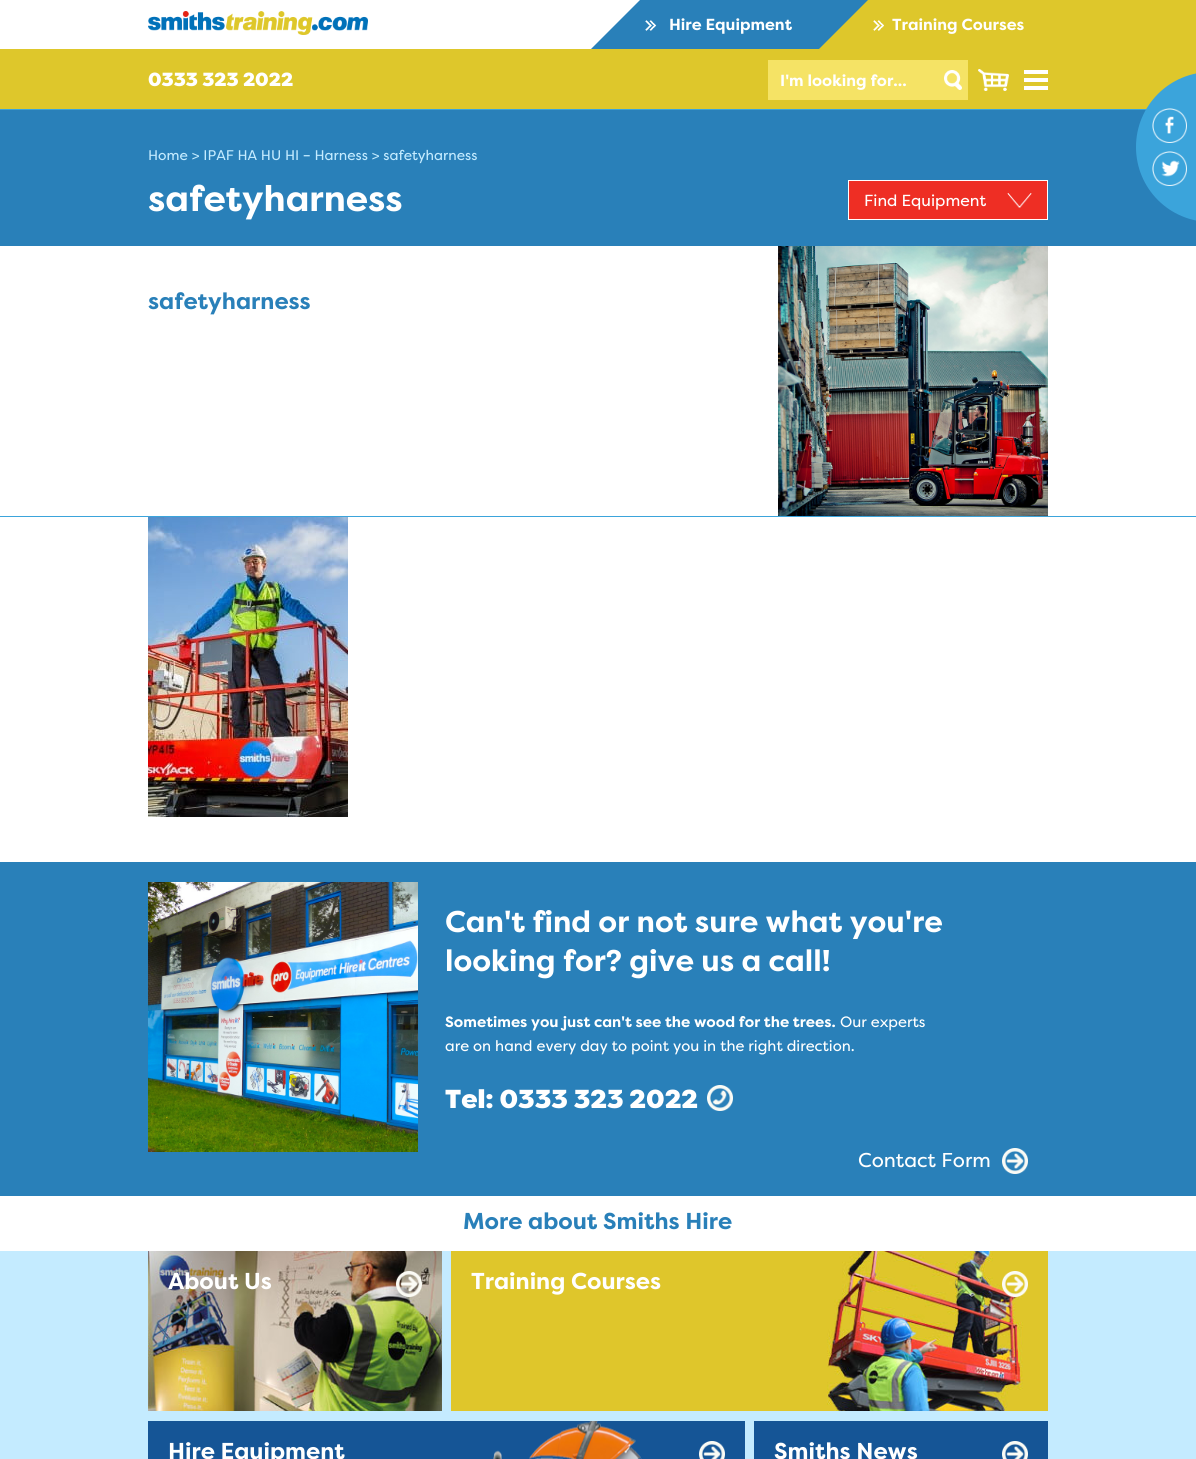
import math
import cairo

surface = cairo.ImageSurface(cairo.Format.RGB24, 1196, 1459)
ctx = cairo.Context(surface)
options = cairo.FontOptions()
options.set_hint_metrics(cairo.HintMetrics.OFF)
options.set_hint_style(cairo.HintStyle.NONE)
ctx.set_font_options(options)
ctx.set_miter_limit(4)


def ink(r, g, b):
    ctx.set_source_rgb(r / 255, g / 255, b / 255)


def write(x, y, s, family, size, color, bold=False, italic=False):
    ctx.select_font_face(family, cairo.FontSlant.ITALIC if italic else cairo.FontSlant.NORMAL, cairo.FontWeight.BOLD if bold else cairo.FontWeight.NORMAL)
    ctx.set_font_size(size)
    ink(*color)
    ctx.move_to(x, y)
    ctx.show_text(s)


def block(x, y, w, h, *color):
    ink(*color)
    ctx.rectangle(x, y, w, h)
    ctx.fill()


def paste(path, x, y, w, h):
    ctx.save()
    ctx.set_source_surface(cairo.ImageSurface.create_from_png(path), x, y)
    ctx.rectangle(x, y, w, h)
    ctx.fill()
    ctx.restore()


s1 = dict(family="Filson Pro", size=16, color=(255, 255, 255), bold=True)
s2 = dict(family="Filson Pro Black", size=19, color=(255, 255, 255))
s3 = dict(family="Filson Pro", size=14, color=(196, 235, 255))
s4 = dict(family="Filson Pro", size=36, color=(255, 255, 255), bold=True)
s5 = dict(family="Filson Pro", size=16, color=(255, 255, 255))
s6 = dict(family="Filson Pro", size=23, color=(41, 128, 185), bold=True)
s7 = dict(family="Filson Pro", size=30, color=(255, 255, 255), bold=True)
s8 = dict(family="Filson Pro", size=15, color=(255, 255, 255), bold=True)
s9 = dict(family="Filson Pro", size=15, color=(255, 255, 255))
s10 = dict(family="Filson Pro Black", size=26, color=(255, 255, 255))
s11 = dict(family="Filson Pro", size=20, color=(255, 255, 255))
s12 = dict(family="Filson Pro", size=23, color=(255, 255, 255), bold=True)

ink(255, 255, 255)
ctx.paint()
block(640, 0, 180, 49, 41, 128, 185)
paste("pic1.png", 645, 20, 12, 11)
ctx.new_path()
ctx.move_to(640, 49)
ctx.line_to(591, 49)
ctx.line_to(640, 0)
ctx.close_path()
ctx.fill()
write(669, 30, "Hire Equipment", **s1)
ink(41, 128, 185)
ctx.new_path()
ctx.move_to(820, 0)
ctx.line_to(869, 0)
ctx.line_to(820, 49)
ctx.close_path()
ctx.fill()
block(868, 0, 180, 49, 222, 199, 43)
paste("pic2.png", 873, 20, 11, 11)
ctx.new_path()
ctx.move_to(868, 49)
ctx.line_to(819, 49)
ctx.line_to(868, 0)
ctx.close_path()
ctx.fill()
write(892, 30, "Training Courses", **s1)
block(1048, 0, 148, 49, 222, 199, 43)
block(0, 49, 1196, 60, 222, 199, 43)
block(0, 109, 1147, 1, 59, 164, 219)
paste("pic3.png", 148, 11, 220, 24)
write(148, 86, "0333 323 2022", **s2)
block(768, 60, 200, 40, 245, 227, 101)
write(780, 86, "I'm looking for...", **s1)
paste("pic4.png", 944, 70, 18, 20)
paste("pic5.png", 978, 69, 31, 22)
block(0, 110, 1196, 136, 41, 128, 185)
ink(59, 164, 219)
ctx.new_path()
ctx.move_to(1211, 72)
ctx.line_to(1196, 72)
ctx.line_to(1196, 222)
ctx.line_to(1211, 222)
ctx.curve_to(1169.5, 222, 1136, 188.5, 1136, 147)
ctx.curve_to(1136, 105.5, 1169.5, 72, 1211, 72)
ctx.close_path()
ctx.fill()
paste("pic6.png", 1152, 108, 35, 35)
paste("pic7.png", 1152, 151, 35, 35)
write(148, 160, "Home > IPAF HA HU HI – Harness > safetyharness", **s3)
write(148, 211, "safetyharness", **s4)
block(849, 181, 198, 38, 238, 46, 36)
paste("pic8.png", 1007, 193, 25, 15)
ctx.rectangle(848.5, 180.5, 199, 39)
ink(255, 255, 255)
ctx.set_line_width(1)
ctx.stroke()
write(864, 206, "Find Equipment", **s5)
block(0, 516, 1196, 1, 59, 164, 219)
write(148, 309, "safetyharness", **s6)
paste("pic9.png", 778, 246, 270, 270)
paste("pic10.png", 148, 517, 200, 300)
block(0, 862, 1196, 334, 41, 128, 185)
paste("pic11.png", 148, 882, 270, 270)
write(445, 932, "Can't find or not sure what you're", **s7)
write(445, 971, "looking for? give us a call!", **s7)
write(445, 1027, "Sometimes you just can't see the wood for the trees.", **s8)
write(840, 1027, "Our experts", **s9)
write(445, 1051, "are on hand every day to point you in the right direction.", **s9)
write(445, 1108, "Tel: 0333 323 2022", **s10)
paste("pic12.png", 707, 1085, 26, 26)
paste("pic13.png", 1002, 1148, 26, 26)
write(858, 1167, "Contact Form", **s11)
block(0, 1251, 1196, 208, 196, 235, 255)
write(463, 1229, "More about Smiths Hire", **s6)
paste("pic14.png", 148, 1251, 294, 160)
write(168, 1289, "About Us", **s12)
paste("pic15.png", 396, 1271, 26, 26)
paste("pic16.png", 451, 1251, 597, 160)
write(471, 1289, "Training Courses", **s12)
paste("pic17.png", 1002, 1271, 26, 26)
block(148, 1421, 597, 38, 21, 85, 150)
paste("pic18.png", 493, 1421, 149, 38)
write(168, 1459, "Hire Equipment", **s12)
paste("pic19.png", 699, 1441, 26, 18)
block(754, 1421, 294, 38, 21, 85, 150)
write(774, 1459, "Smiths News", **s12)
paste("pic20.png", 1002, 1441, 26, 18)
block(1024, 70, 24, 4, 255, 255, 255)
block(1024, 78, 24, 4, 255, 255, 255)
block(1024, 86, 24, 4, 255, 255, 255)
surface.write_to_png("screenshot.png")
